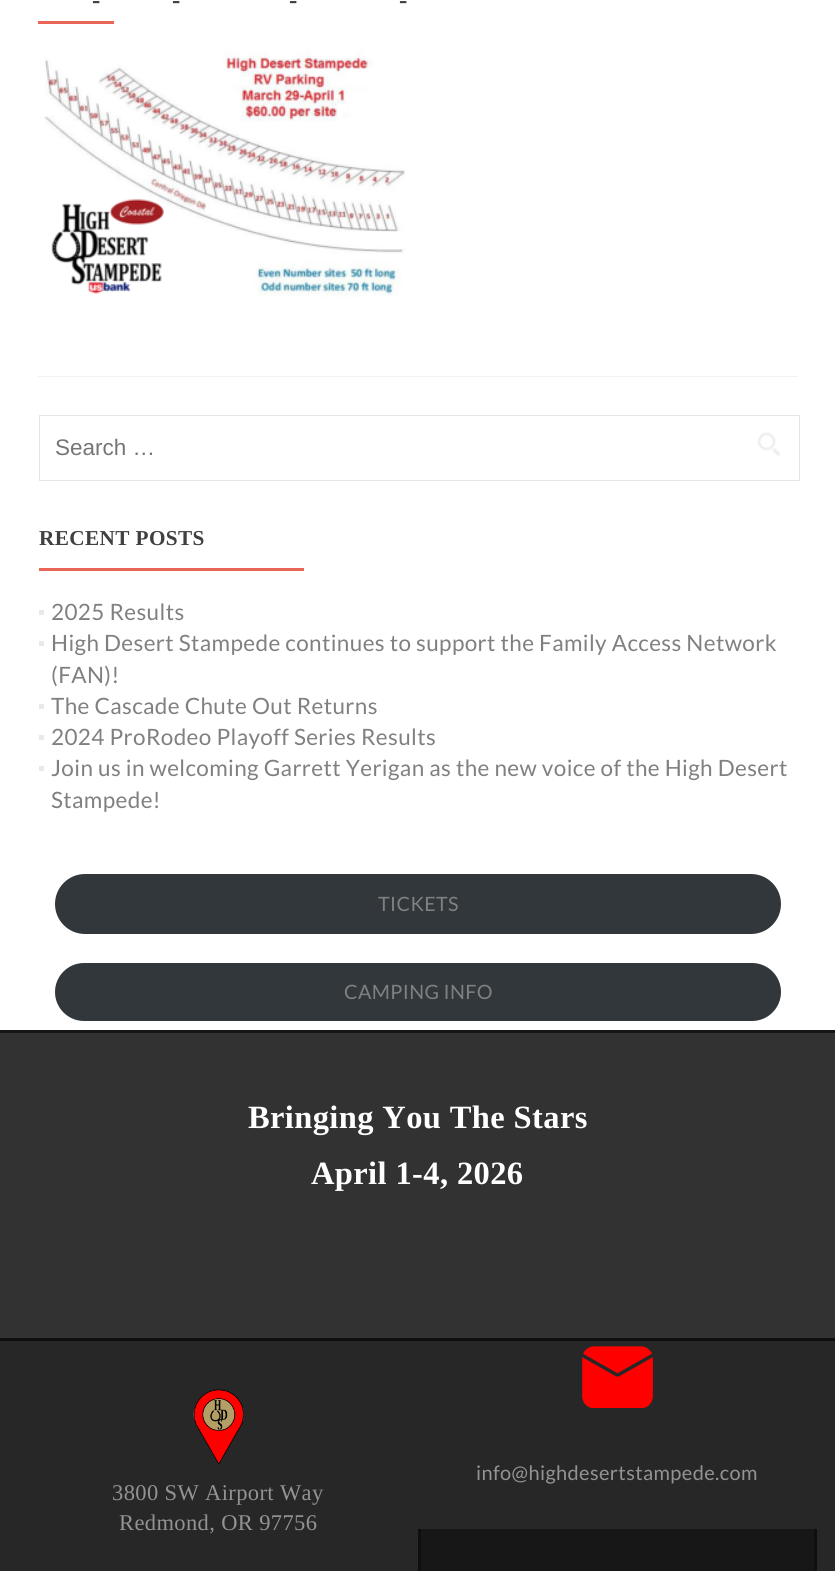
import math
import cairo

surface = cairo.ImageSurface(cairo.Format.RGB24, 835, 1571)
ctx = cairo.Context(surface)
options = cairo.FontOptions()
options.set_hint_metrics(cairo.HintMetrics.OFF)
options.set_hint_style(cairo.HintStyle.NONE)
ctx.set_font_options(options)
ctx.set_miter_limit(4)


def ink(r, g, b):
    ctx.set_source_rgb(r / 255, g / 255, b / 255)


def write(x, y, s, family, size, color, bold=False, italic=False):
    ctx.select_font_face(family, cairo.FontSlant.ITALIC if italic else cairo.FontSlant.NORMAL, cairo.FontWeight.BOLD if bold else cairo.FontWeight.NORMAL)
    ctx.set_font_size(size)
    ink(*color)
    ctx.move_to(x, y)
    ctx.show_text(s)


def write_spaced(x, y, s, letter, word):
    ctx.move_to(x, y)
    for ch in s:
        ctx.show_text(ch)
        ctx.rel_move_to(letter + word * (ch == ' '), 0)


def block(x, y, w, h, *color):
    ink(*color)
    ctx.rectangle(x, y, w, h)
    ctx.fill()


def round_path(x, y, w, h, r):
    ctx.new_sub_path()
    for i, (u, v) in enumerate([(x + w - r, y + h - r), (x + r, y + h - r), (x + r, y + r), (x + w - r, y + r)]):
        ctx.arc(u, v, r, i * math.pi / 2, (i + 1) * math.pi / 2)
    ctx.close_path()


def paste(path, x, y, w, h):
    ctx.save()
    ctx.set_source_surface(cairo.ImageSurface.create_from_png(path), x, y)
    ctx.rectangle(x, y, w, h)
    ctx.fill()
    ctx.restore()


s1 = dict(family="Liberation Sans", size=22.5, color=(117, 117, 117))

ink(255, 255, 255)
ctx.paint()
block(38, 376, 760, 1, 242, 242, 242)
ctx.select_font_face("Liberation Serif", cairo.FontSlant.NORMAL, cairo.FontWeight.BOLD)
ctx.set_font_size(25)
ink(64, 64, 64)
write_spaced(92, 8, "-", 0.38, 0)
write_spaced(172, 8, "-", 0.38, 0)
write_spaced(289, 8, "-", 0.38, 0)
write_spaced(399, 8, "-", 0.38, 0)
block(38, 21, 76, 3, 233, 102, 86)
paste("pic1.png", 44, 50, 362, 247)
block(19, 60, 1, 1, 242, 242, 242)
ctx.rectangle(39.5, 415.5, 760, 65)
ink(230, 230, 230)
ctx.set_line_width(1)
ctx.stroke()
write(55, 455, "Search …", **s1)
paste("pic2.png", 757, 432, 23, 24)
ctx.select_font_face("Liberation Serif", cairo.FontSlant.NORMAL, cairo.FontWeight.BOLD)
ctx.set_font_size(21.25)
ink(64, 64, 64)
write_spaced(39, 545, "RECENT POSTS", 0.38, 0)
block(39, 568, 265, 3, 233, 102, 86)
block(39, 610, 5, 5, 233, 233, 233)
ctx.select_font_face("Lato")
ctx.set_font_size(22.5)
ink(128, 128, 128)
write_spaced(51, 620, "2025 Results", 0.38, 0)
block(39, 641, 5, 5, 233, 233, 233)
ink(128, 128, 128)
write_spaced(51, 651, "High Desert Stampede continues to support the Family Access Network", 0.38, 0)
write_spaced(51, 683, "(FAN)!", 0.38, 0)
block(39, 704, 5, 5, 233, 233, 233)
ink(128, 128, 128)
write_spaced(51, 714, "The Cascade Chute Out Returns", 0.38, 0)
block(39, 735, 5, 5, 233, 233, 233)
ink(128, 128, 128)
write_spaced(51, 745, "2024 ProRodeo Playoff Series Results", 0.38, 0)
block(39, 766, 5, 5, 233, 233, 233)
ink(128, 128, 128)
write_spaced(51, 776, "Join us in welcoming Garrett Yerigan as the new voice of the High Desert", 0.38, 0)
write_spaced(51, 808, "Stampede!", 0.38, 0)
ink(50, 55, 60)
round_path(55, 874, 726, 60, 30)
ctx.fill()
ctx.set_font_size(19.75)
ink(128, 128, 128)
write_spaced(378, 911, "TICKETS", 0.38, 0)
ink(50, 55, 60)
round_path(55, 963, 726, 58, 29)
ctx.fill()
ink(128, 128, 128)
write_spaced(344, 999, "CAMPING INFO", 0.38, 0)
block(0, 1341, 835, 230, 39, 39, 39)
block(0, 1030, 835, 3, 22, 22, 22)
block(0, 1033, 835, 305, 50, 50, 50)
block(0, 1338, 835, 3, 15, 15, 15)
ctx.select_font_face("Liberation Serif", cairo.FontSlant.NORMAL, cairo.FontWeight.BOLD)
ctx.set_font_size(32.5)
ink(255, 255, 255)
write_spaced(248, 1128, "Bringing You The Stars", 0.38, 0)
write_spaced(311, 1184, "April 1-4, 2026", 0.38, 0)
paste("pic3.png", 582, 1346, 71, 62)
ctx.select_font_face("Lato")
ctx.set_font_size(20)
ink(147, 147, 147)
write_spaced(476, 1480, "info@highdesertstampede.com", 0.38, 0)
paste("pic4.png", 193, 1389, 51, 76)
ctx.select_font_face("Liberation Serif")
ctx.set_font_size(22.5)
write_spaced(112, 1500, "3800 SW Airport Way", 0.38, 0)
write_spaced(119, 1530, "Redmond, OR 97756", 0.38, 0)
block(421, 1529, 393, 42, 23, 23, 23)
block(814, 1529, 3, 42, 15, 15, 15)
block(418, 1529, 3, 42, 15, 15, 15)
surface.write_to_png("screenshot.png")
